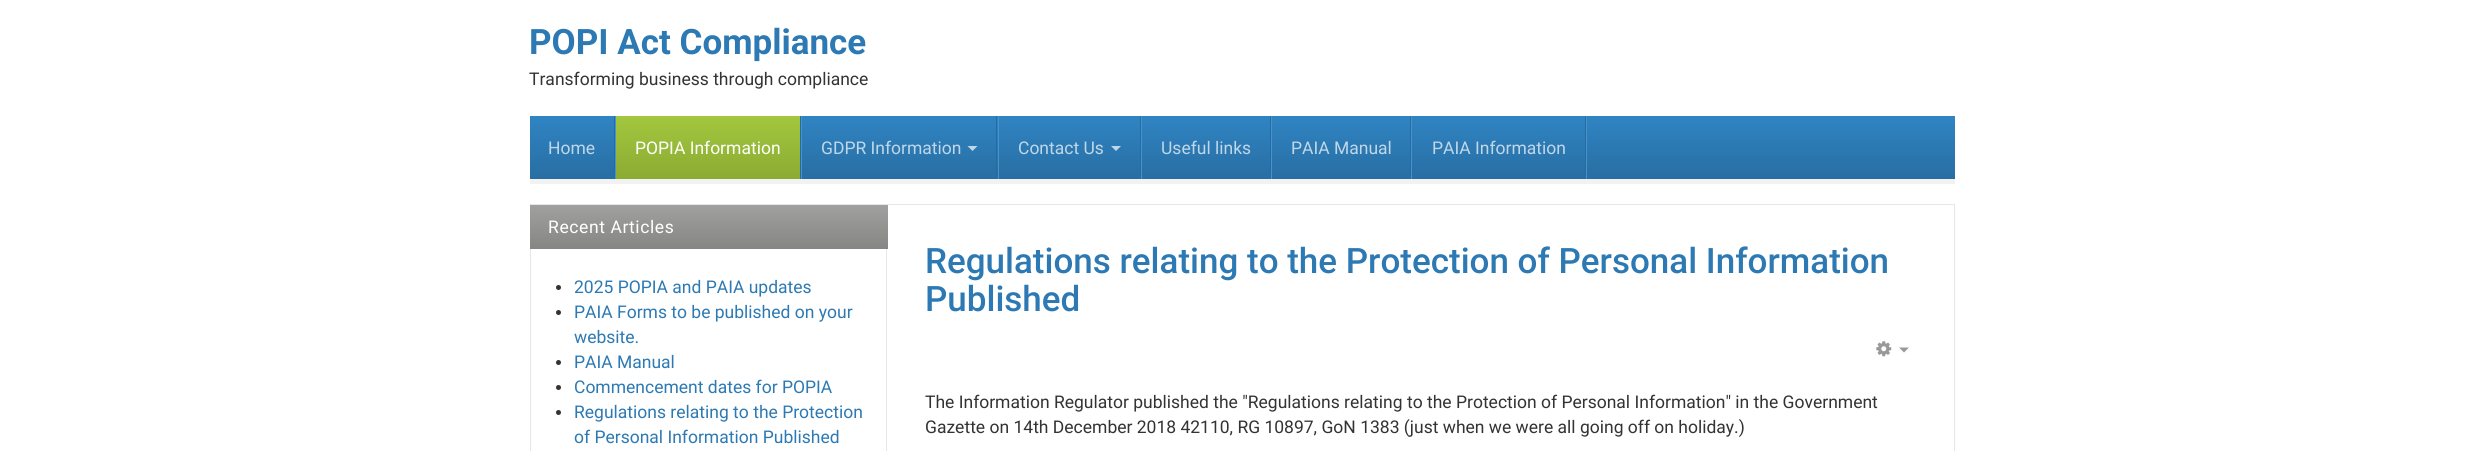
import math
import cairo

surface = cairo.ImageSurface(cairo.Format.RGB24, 2483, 451)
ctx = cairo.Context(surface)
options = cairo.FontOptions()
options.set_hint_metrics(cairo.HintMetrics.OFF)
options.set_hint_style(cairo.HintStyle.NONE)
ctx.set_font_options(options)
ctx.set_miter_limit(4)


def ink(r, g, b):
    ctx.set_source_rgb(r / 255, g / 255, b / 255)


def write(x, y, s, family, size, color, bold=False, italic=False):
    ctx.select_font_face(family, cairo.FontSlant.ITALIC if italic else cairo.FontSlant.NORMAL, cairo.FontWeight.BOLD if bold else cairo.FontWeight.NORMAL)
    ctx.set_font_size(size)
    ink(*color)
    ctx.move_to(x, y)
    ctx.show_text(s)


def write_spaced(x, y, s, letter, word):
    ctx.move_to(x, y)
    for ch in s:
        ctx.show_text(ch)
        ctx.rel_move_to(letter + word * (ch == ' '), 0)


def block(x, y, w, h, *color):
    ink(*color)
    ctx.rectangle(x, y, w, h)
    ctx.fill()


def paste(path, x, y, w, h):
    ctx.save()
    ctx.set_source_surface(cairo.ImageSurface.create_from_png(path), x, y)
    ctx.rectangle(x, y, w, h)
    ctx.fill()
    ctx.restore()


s1 = dict(family="Roboto", size=35, color=(44, 121, 179), bold=True)
s2 = dict(family="Roboto", size=17.5, color=(51, 51, 51))
s3 = dict(family="Roboto", size=17.5, color=(192, 215, 232))
s4 = dict(family="Roboto", size=17.5, color=(255, 255, 255))
s5 = dict(family="Roboto", size=17.5, color=(44, 121, 179))
s6 = dict(family="Roboto Medium", size=35, color=(44, 121, 179))

ink(255, 255, 255)
ctx.paint()
write(529, 54, "POPI Act Compliance", **s1)
write(529, 85, "Transforming business through compliance", **s2)
block(530, 179, 1425, 5, 242, 242, 242)
gradient = cairo.LinearGradient(1243, 116, 1243, 179)
gradient.add_color_stop_rgba(0, 0.188, 0.518, 0.765, 1)
gradient.add_color_stop_rgba(1, 0.157, 0.431, 0.639, 1)
ctx.set_source(gradient)
ctx.rectangle(530, 116, 1425, 63)
ctx.fill()
block(615, 116, 1, 63, 66, 147, 208)
block(614, 116, 1, 63, 39, 107, 159)
write(548, 154, "Home", **s3)
block(801, 116, 1, 63, 66, 147, 208)
gradient = cairo.LinearGradient(708, 116, 708, 179)
gradient.add_color_stop_rgba(0, 0.639, 0.78, 0.247, 1)
gradient.add_color_stop_rgba(1, 0.545, 0.671, 0.196, 1)
ctx.set_source(gradient)
ctx.rectangle(616, 116, 184, 63)
ctx.fill()
block(800, 116, 1, 63, 39, 107, 159)
write(635, 154, "POPIA Information", **s4)
block(998, 116, 1, 63, 66, 147, 208)
block(996, 116, 1, 63, 39, 107, 159)
write(821, 154, "GDPR Information", **s3)
ctx.set_source_rgba(1, 1, 1, 0.7)
ctx.new_path()
ctx.move_to(967.5, 146)
ctx.line_to(977.5, 146)
ctx.line_to(972.5, 151)
ctx.close_path()
ctx.fill()
block(1141, 116, 1, 63, 66, 147, 208)
block(1140, 116, 1, 63, 39, 107, 159)
write(1018, 154, "Contact Us", **s3)
ctx.set_source_rgba(1, 1, 1, 0.7)
ctx.new_path()
ctx.move_to(1111, 146)
ctx.line_to(1121, 146)
ctx.line_to(1116, 151)
ctx.close_path()
ctx.fill()
block(1271, 116, 1, 63, 66, 147, 208)
block(1270, 116, 1, 63, 39, 107, 159)
write(1161, 154, "Useful links", **s3)
block(1411, 116, 1, 63, 66, 147, 208)
block(1410, 116, 1, 63, 39, 107, 159)
write(1291, 154, "PAIA Manual", **s3)
block(1586, 116, 1, 63, 66, 147, 208)
block(1585, 116, 1, 63, 39, 107, 159)
write(1432, 154, "PAIA Information", **s3)
ctx.rectangle(530.5, 204.5, 1424, 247)
ink(231, 232, 230)
ctx.set_line_width(1)
ctx.stroke()
gradient = cairo.LinearGradient(709, 205, 709, 249)
gradient.add_color_stop_rgba(0, 0.627, 0.627, 0.627, 1)
gradient.add_color_stop_rgba(1, 0.525, 0.529, 0.518, 1)
ctx.set_source(gradient)
ctx.rectangle(530, 205, 358, 44)
ctx.fill()
ink(255, 255, 255)
write_spaced(548, 233, "Recent Articles", 0.6, 0)
ink(51, 51, 51)
ctx.new_path()
ctx.arc(558.5, 287.5, 2.5, 0, 2 * math.pi)
ctx.fill()
write(574, 293, "2025 POPIA and PAIA updates", **s5)
ink(51, 51, 51)
ctx.new_path()
ctx.arc(558.5, 312.5, 2.5, 0, 2 * math.pi)
ctx.fill()
write(574, 318, "PAIA Forms to be published on your", **s5)
write(574, 343, "website.", **s5)
ink(51, 51, 51)
ctx.new_path()
ctx.arc(558.5, 362.5, 2.5, 0, 2 * math.pi)
ctx.fill()
write(574, 368, "PAIA Manual", **s5)
ink(51, 51, 51)
ctx.new_path()
ctx.arc(558.5, 387.5, 2.5, 0, 2 * math.pi)
ctx.fill()
write(574, 393, "Commencement dates for POPIA", **s5)
ink(51, 51, 51)
ctx.new_path()
ctx.arc(558.5, 412.5, 2.5, 0, 2 * math.pi)
ctx.fill()
write(574, 418, "Regulations relating to the Protection", **s5)
write(574, 443, "of Personal Information Published", **s5)
block(886, 249, 1, 202, 231, 232, 230)
write(925, 273, "Regulations relating to the Protection of Personal Information", **s6)
write(925, 311, "Published", **s6)
paste("pic1.png", 1876, 341, 16, 16)
ink(153, 153, 153)
ctx.new_path()
ctx.move_to(1899, 347.5)
ctx.line_to(1909, 347.5)
ctx.line_to(1904, 352.5)
ctx.close_path()
ctx.fill()
write(925, 408, "The Information Regulator published the \"Regulations relating to the Protection of Personal Information\" in the Government", **s2)
write(925, 433, "Gazette on 14th December 2018 42110, RG 10897, GoN 1383 (just when we were all going off on holiday.)", **s2)
surface.write_to_png("screenshot.png")
